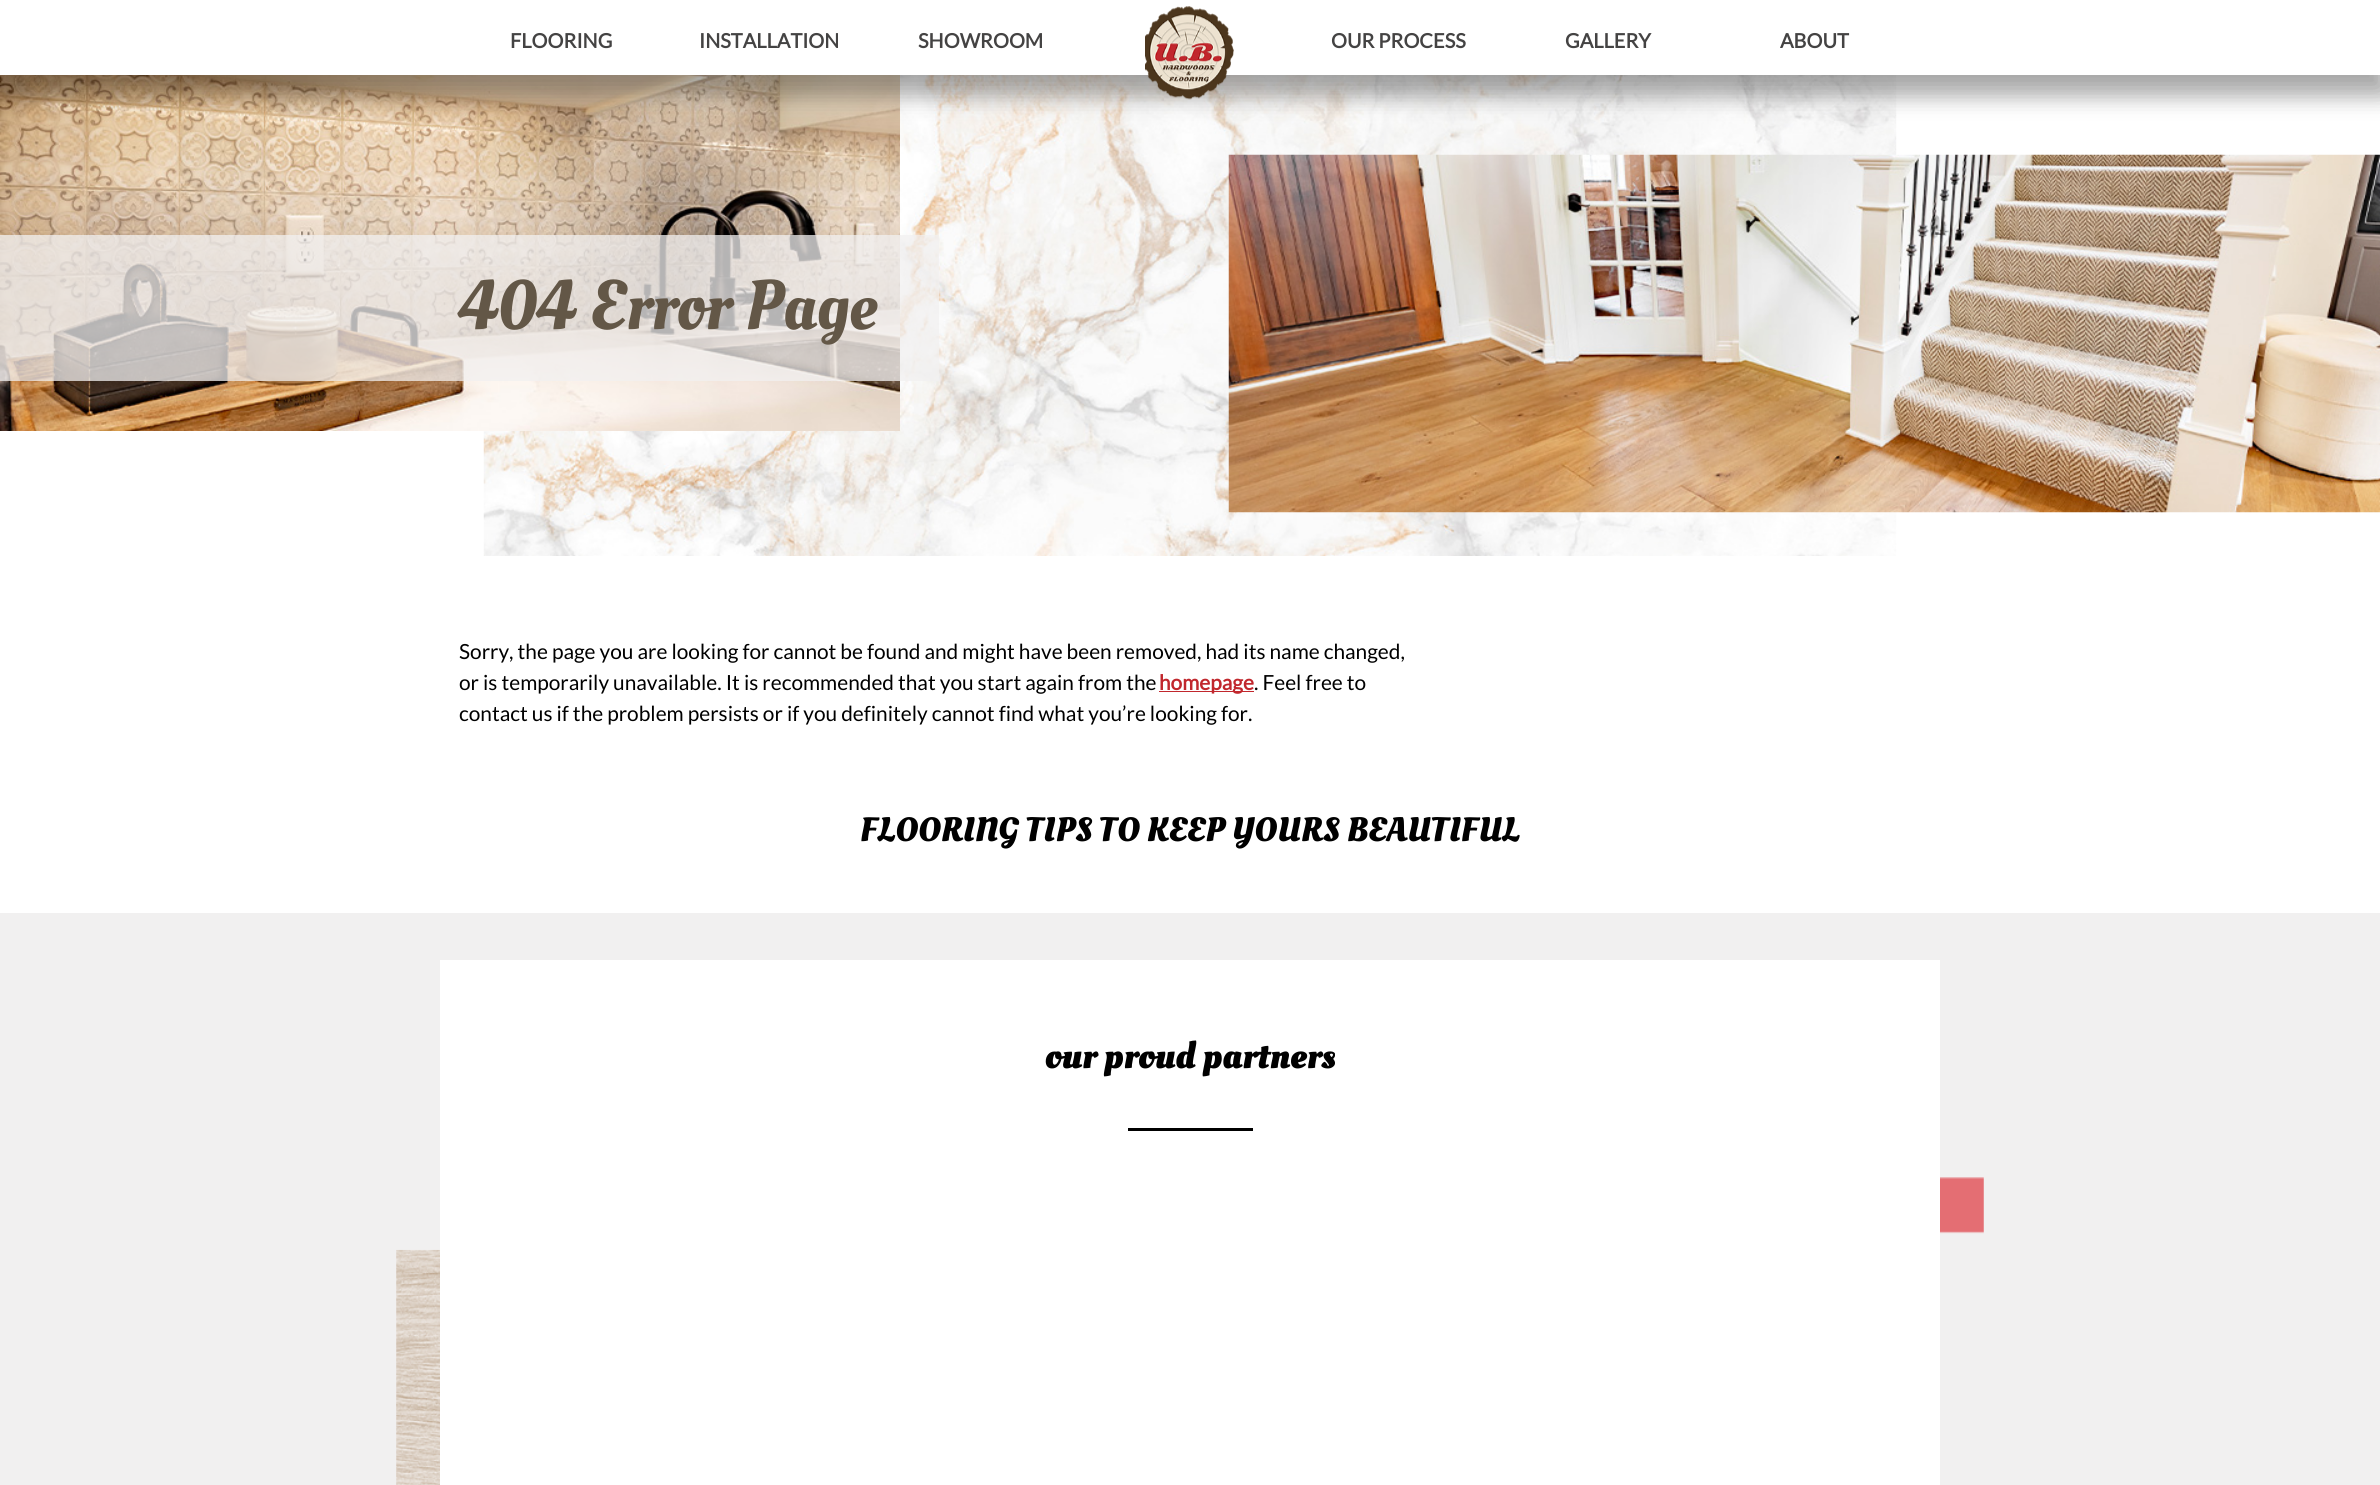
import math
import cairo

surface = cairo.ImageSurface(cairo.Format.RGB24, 2380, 1485)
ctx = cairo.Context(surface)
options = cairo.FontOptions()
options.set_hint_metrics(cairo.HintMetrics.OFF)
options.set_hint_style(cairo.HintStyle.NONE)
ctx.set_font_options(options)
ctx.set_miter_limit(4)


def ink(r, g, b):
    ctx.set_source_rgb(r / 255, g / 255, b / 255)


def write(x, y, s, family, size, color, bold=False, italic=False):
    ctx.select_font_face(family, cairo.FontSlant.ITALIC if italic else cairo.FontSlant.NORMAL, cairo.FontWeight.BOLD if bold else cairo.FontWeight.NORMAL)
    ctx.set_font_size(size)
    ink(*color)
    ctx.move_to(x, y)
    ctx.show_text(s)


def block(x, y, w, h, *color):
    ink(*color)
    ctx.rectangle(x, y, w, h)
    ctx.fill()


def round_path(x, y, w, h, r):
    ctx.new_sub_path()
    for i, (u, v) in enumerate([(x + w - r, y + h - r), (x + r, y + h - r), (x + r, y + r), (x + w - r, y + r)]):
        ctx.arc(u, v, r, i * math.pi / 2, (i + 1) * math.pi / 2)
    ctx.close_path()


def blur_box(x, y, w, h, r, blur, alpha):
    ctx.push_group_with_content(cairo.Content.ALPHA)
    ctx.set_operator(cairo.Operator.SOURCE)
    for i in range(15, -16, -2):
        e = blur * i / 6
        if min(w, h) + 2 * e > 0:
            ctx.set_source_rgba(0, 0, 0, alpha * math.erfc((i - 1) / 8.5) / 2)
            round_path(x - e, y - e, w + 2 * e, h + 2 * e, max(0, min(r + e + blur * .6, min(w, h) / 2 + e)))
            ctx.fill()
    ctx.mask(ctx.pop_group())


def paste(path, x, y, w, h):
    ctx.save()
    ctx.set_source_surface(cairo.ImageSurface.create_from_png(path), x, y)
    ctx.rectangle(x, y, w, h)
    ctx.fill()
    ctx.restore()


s1 = dict(family="Lato", size=20, color=(68, 67, 67), bold=True)
s2 = dict(family="Oleo Script", size=70, color=(99, 87, 71))
s3 = dict(family="Lato", size=20.85, color=(0, 0, 0))
s4 = dict(family="Lato", size=20.85, color=(193, 39, 45), bold=True)
s5 = dict(family="Oleo Script", size=33.75, color=(0, 0, 0), bold=True)
s6 = dict(family="Oleo Script", size=37.5, color=(0, 0, 0), bold=True)

ink(255, 255, 255)
ctx.paint()
paste("pic2.png", 483, 75, 1414, 481)
paste("pic3.png", 0, 75, 900, 356)
ink(0, 0, 0)
blur_box(-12, 0, 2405, 100, 0, 9.5, 0.2)
blur_box(0, 13, 2380, 75, 0, 12.5, 0.2)
block(0, 0, 2380, 75, 255, 255, 255)
write(510, 48, "FLOORING", **s1)
write(699, 48, "INSTALLATION", **s1)
write(918, 48, "SHOWROOM", **s1)
paste("pic1.png", 1145, 6, 89, 94)
write(1331, 48, "OUR PROCESS", **s1)
write(1565, 48, "GALLERY", **s1)
write(1780, 48, "ABOUT", **s1)
paste("pic4.png", 1228, 154, 1152, 359)
ctx.set_source_rgba(0.945, 0.941, 0.941, 0.75)
ctx.rectangle(440, 235, 499, 146)
ctx.fill()
ctx.rectangle(0, 235, 440, 146)
ctx.fill()
write(459, 329, "404 Error Page", **s2)
write(459, 659, "Sorry, the page you are looking for cannot be found and might have been removed, had its name changed,", **s3)
write(459, 690, "or is temporarily unavailable. It is recommended that you start again from the", **s3)
block(1159, 691, 95, 1, 193, 39, 45)
write(1159, 690, "homepage", **s4)
write(1254, 690, ". Feel free to", **s3)
write(459, 721, "contact us if the problem persists or if you definitely cannot find what you’re looking for.", **s3)
write(860, 841, "FLOORING TIPS TO KEEP YOURS BEAUTIFUL", **s5)
block(0, 913, 2380, 572, 241, 240, 240)
paste("pic5.png", 396, 1177, 1588, 308)
block(440, 960, 1500, 525, 255, 255, 255)
write(1045, 1068, "our proud partners", **s6)
block(1128, 1128, 125, 3, 0, 0, 0)
surface.write_to_png("screenshot.png")
